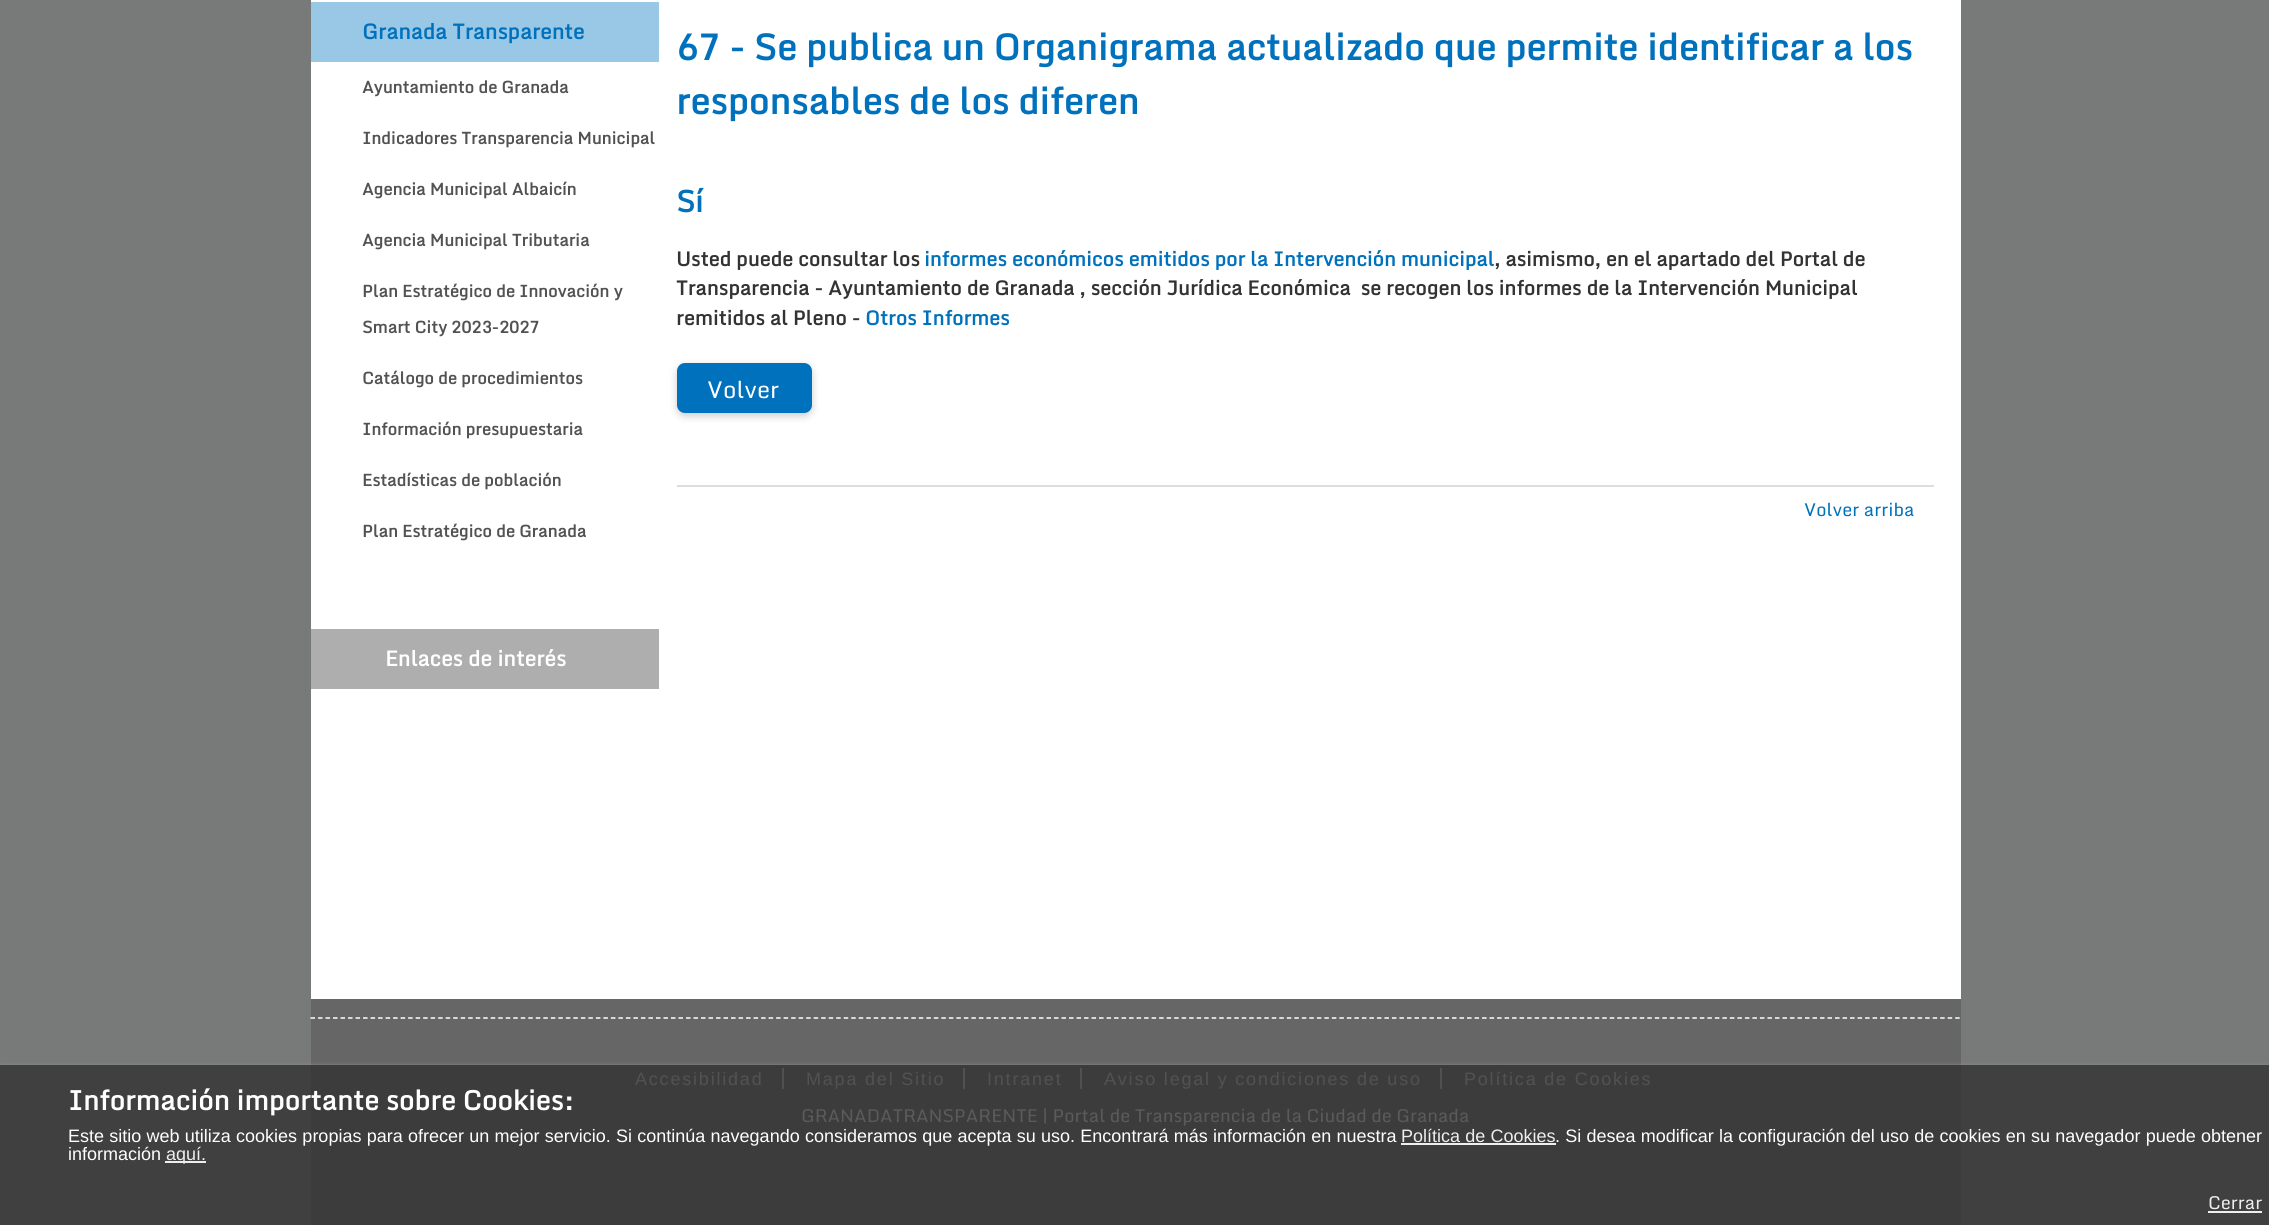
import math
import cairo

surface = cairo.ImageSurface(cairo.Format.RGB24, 2269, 1225)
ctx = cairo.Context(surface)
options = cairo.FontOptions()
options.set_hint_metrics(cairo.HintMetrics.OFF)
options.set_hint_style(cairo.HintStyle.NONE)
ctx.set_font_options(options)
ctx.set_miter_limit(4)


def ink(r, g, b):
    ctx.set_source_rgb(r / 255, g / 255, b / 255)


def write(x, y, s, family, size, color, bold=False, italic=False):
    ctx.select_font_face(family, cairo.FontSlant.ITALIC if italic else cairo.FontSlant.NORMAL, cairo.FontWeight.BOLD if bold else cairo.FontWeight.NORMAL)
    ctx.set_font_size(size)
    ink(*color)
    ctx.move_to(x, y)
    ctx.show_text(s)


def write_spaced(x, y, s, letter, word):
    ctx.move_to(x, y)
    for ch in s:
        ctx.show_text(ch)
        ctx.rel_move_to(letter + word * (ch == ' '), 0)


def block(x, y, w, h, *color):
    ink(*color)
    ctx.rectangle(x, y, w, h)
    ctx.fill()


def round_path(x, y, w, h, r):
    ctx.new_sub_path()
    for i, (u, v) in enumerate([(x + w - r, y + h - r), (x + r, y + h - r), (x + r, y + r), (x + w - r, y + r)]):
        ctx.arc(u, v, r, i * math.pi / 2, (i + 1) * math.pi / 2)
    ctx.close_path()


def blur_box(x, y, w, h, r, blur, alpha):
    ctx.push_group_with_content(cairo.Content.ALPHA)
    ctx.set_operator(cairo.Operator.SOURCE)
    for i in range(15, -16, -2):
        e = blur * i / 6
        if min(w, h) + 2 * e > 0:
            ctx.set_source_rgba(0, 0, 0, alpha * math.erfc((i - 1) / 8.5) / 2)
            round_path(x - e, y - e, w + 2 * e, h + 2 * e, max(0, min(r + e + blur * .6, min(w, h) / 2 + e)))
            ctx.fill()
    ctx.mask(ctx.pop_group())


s1 = dict(family="Monda", size=21, color=(0, 113, 188), bold=True)
s2 = dict(family="Monda", size=16.6, color=(82, 82, 82), bold=True)
s3 = dict(family="Monda", size=21, color=(255, 255, 255), bold=True)
s4 = dict(family="Monda", size=36, color=(0, 113, 188), bold=True)
s5 = dict(family="Monda", size=30, color=(0, 113, 188), bold=True)
s6 = dict(family="Monda", size=19.8, color=(51, 51, 51), bold=True)
s7 = dict(family="Monda", size=19.8, color=(0, 113, 188), bold=True)
s8 = dict(family="Monda", size=23.5, color=(255, 255, 255))
s9 = dict(family="Monda", size=18, color=(0, 113, 188))
s10 = dict(family="Monda", size=18, color=(91, 91, 91))
s11 = dict(family="Monda", size=27, color=(255, 255, 255), bold=True)
s12 = dict(family="Liberation Sans", size=18, color=(255, 255, 255))
s13 = dict(family="Liberation Sans", size=18, color=(238, 238, 238))
s14 = dict(family="Monda", size=18, color=(238, 238, 238))

ink(120, 121, 121)
ctx.paint()
block(0, 1065, 2269, 160, 64, 64, 64)
block(311, 0, 1650, 999, 255, 255, 255)
block(311, 2, 348, 60, 153, 200, 231)
write(362, 39, "Granada Transparente", **s1)
write(362, 93, "Ayuntamiento de Granada", **s2)
write(362, 144, "Indicadores Transparencia Municipal", **s2)
write(362, 195, "Agencia Municipal Albaicín", **s2)
write(362, 246, "Agencia Municipal Tributaria", **s2)
write(362, 297, "Plan Estratégico de Innovación y", **s2)
write(362, 333, "Smart City 2023-2027", **s2)
write(362, 384, "Catálogo de procedimientos", **s2)
write(362, 435, "Información presupuestaria", **s2)
write(362, 486, "Estadísticas de población", **s2)
write(362, 537, "Plan Estratégico de Granada", **s2)
block(311, 629, 348, 60, 174, 174, 174)
write(385, 666, "Enlaces de interés", **s3)
write(676, 60, "67 - Se publica un Organigrama actualizado que permite identificar a los", **s4)
write(676, 114, "responsables de los diferen", **s4)
write(676, 212, "Sí", **s5)
write(676, 266, "Usted puede consultar los", **s6)
write(924, 266, "informes económicos emitidos por la Intervención municipal", **s7)
write(1494, 266, ", asimismo, en el apartado del Portal de", **s6)
write(676, 295, "Transparencia - Ayuntamiento de Granada , sección Jurídica Económica  se recogen los informes de la Intervención Municipal", **s6)
write(676, 325, "remitidos al Pleno -", **s6)
write(865, 325, "Otros Informes", **s7)
ink(204, 204, 204)
blur_box(677, 366, 135, 50, 8, 4, 1)
ink(0, 113, 188)
round_path(677, 363, 135, 50, 8)
ctx.fill()
write(707, 398, "Volver", **s8)
block(677, 485, 1257, 2, 221, 221, 221)
write(1804, 516, "Volver arriba", **s9)
block(311, 999, 1650, 66, 102, 102, 102)
block(311, 1065, 1650, 160, 60, 60, 60)
ctx.new_path()
ctx.move_to(310.5, 1018)
ctx.line_to(1960.5, 1018)
ink(255, 255, 255)
ctx.set_line_width(1.5)
ctx.set_dash([4.5, 3.01])
ctx.stroke()
ctx.select_font_face("Liberation Sans")
ink(82, 82, 82)
write_spaced(635, 1085, "Accesibilidad", 1.8, 0)
block(782, 1068, 2, 21, 81, 81, 81)
ink(82, 82, 82)
write_spaced(806, 1085, "Mapa del Sitio", 1.8, 0)
block(963, 1068, 2, 21, 81, 81, 81)
ink(82, 82, 82)
write_spaced(987, 1085, "Intranet", 1.8, 0)
block(1080, 1068, 2, 21, 81, 81, 81)
ink(82, 82, 82)
write_spaced(1104, 1085, "Aviso legal y condiciones de uso", 1.8, 0)
block(1440, 1068, 2, 21, 81, 81, 81)
ink(82, 82, 82)
write_spaced(1464, 1085, "Política de Cookies", 1.8, 0)
write(801, 1122, "GRANADATRANSPARENTE | Portal de Transparencia de la Ciudad de Granada", **s10)
ctx.save()
ctx.rectangle(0, 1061, 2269, 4)
ctx.clip()
ink(138, 138, 138)
blur_box(0, 1065, 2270, 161, 0, 2, 1)
ctx.restore()
write(68, 1110, "Información importante sobre Cookies:", **s11)
ctx.select_font_face("Liberation Sans")
ctx.set_font_size(18)
write_spaced(68, 1142, "Este sitio web utiliza cookies propias para ofrecer un mejor servicio. Si continúa navegando consideramos que acepta su uso. Encontrará más información en nuestra", 0, 0.25)
ink(238, 238, 238)
write_spaced(1401, 1142, "Política de Cookies", 0, 0.25)
ink(255, 255, 255)
write_spaced(1555, 1142, ". Si desea modificar la configuración del uso de cookies en su navegador puede obtener", 0, 0.25)
block(1401, 1143, 155, 2, 238, 238, 238)
write(68, 1160, "información", **s12)
block(165, 1161, 41, 2, 238, 238, 238)
write(166, 1160, "aquí.", **s13)
write(2208, 1209, "Cerrar", **s14)
block(2208, 1211, 54, 2, 238, 238, 238)
surface.write_to_png("screenshot.png")
